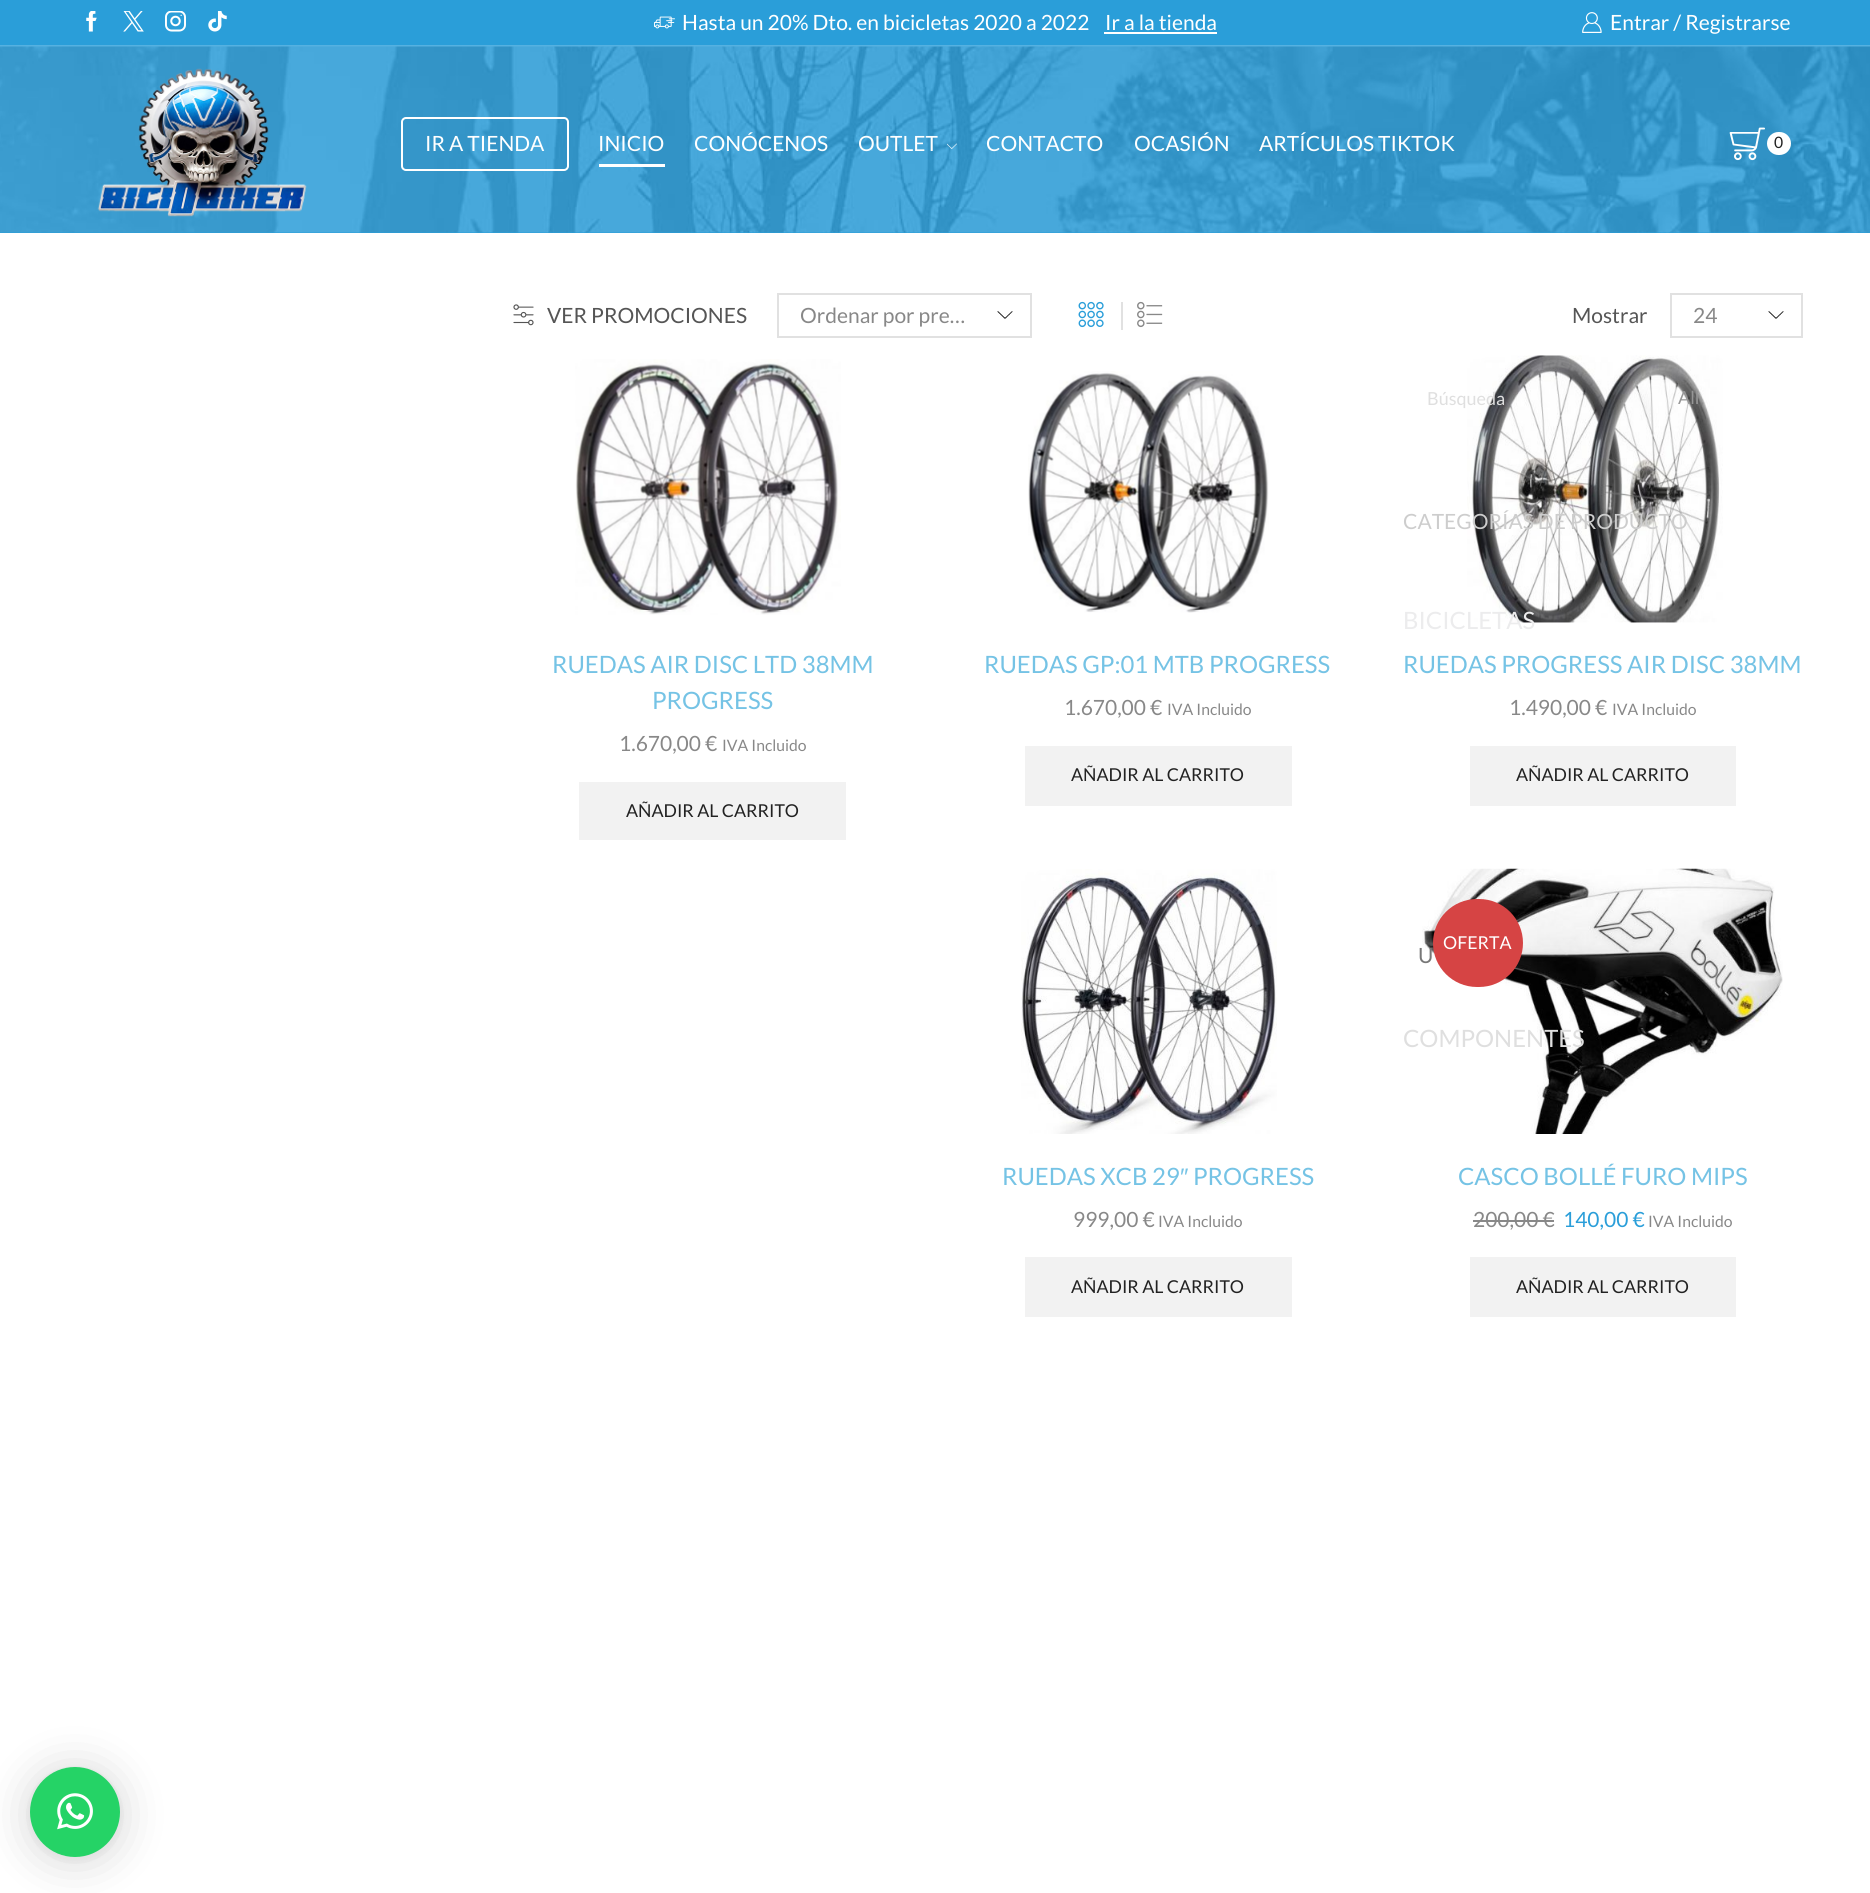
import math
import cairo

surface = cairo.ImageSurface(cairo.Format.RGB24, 1870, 1893)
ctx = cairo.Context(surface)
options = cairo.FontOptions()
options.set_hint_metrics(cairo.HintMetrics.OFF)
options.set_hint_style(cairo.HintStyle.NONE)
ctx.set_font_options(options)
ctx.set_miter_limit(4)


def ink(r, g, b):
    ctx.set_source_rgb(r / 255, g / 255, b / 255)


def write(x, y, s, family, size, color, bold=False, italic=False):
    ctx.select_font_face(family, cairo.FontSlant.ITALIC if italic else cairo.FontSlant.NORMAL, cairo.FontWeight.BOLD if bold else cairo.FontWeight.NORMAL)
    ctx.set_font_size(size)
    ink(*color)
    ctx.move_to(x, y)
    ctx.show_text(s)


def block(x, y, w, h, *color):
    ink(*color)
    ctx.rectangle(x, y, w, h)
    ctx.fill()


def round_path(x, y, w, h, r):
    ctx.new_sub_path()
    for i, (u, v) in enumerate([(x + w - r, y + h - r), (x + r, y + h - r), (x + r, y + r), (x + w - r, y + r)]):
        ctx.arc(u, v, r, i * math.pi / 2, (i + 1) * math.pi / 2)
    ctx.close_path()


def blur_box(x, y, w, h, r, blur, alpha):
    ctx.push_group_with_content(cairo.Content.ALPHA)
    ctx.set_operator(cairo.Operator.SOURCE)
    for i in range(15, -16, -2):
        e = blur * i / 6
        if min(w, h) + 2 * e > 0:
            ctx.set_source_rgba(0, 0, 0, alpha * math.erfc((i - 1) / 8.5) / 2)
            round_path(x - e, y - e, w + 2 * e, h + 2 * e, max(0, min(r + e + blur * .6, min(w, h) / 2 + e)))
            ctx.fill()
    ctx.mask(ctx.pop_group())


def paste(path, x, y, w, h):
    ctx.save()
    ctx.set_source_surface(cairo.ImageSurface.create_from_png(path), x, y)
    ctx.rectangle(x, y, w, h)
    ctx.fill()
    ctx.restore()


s1 = dict(family="Lato", size=21, color=(255, 255, 255))
s2 = dict(family="Lato", size=15.75, color=(34, 34, 34))
s3 = dict(family="Lato", size=21, color=(85, 85, 85))
s4 = dict(family="Lato", size=21, color=(136, 136, 136))
s5 = dict(family="Lato", size=23.9, color=(117, 195, 229))
s6 = dict(family="Lato", size=15.75, color=(136, 136, 136))
s7 = dict(family="Lato", size=17.75, color=(34, 34, 34))
s8 = dict(family="Liberation Sans", size=23.9, color=(117, 195, 229))
s9 = dict(family="Lato", size=17.75, color=(255, 255, 255))
s10 = dict(family="Lato", size=21, color=(42, 158, 217))
s11 = dict(family="Lato", size=18, color=(223, 223, 223))
s12 = dict(family="Lato", size=18, color=(150, 150, 150))
s13 = dict(family="Lato", size=21, color=(205, 205, 205))
s14 = dict(family="Lato", size=23.9, color=(236, 236, 237))
s15 = dict(family="Lato", size=21, color=(119, 119, 119))
s16 = dict(family="Lato", size=23.9, color=(223, 223, 223))

ink(255, 255, 255)
ctx.paint()
block(0, 0, 1870, 45, 42, 158, 217)
block(0, 45, 1870, 2, 85, 177, 225)
paste("pic1.png", 86, 11, 11, 21)
paste("pic2.png", 123, 11, 21, 21)
paste("pic3.png", 165, 11, 21, 21)
paste("pic4.png", 208, 11, 19, 21)
paste("pic5.png", 654, 16, 21, 13)
write(682, 30, "Hasta un 20% Dto. en bicicletas 2020 a 2022", **s1)
write(1105, 30, "Ir a la tienda", **s1)
block(1104, 32, 113, 2, 255, 255, 255)
paste("pic6.png", 1582, 12, 20, 21)
write(1610, 30, "Entrar / Registrarse", **s1)
block(0, 232, 1870, 1, 42, 158, 217)
paste("pic7.png", 0, 46, 1870, 187)
paste("pic8.png", 97, 68, 210, 149)
round_path(402, 118, 166, 52, 4)
ink(255, 255, 255)
ctx.stroke()
write(425, 151, "IR A TIENDA", **s1)
write(598, 151, "INICIO", **s1)
block(599, 164, 66, 3, 255, 255, 255)
write(694, 151, "CONÓCENOS", **s1)
write(858, 151, "OUTLET", **s1)
paste("pic9.png", 947, 143, 10, 6)
write(986, 151, "CONTACTO", **s1)
write(1134, 151, "OCASIÓN", **s1)
write(1259, 151, "ARTÍCULOS TIKTOK", **s1)
paste("pic10.png", 1729, 127, 36, 34)
round_path(1767, 132, 24, 23, 11.5)
ctx.fill()
write(1774, 148, "0", **s2)
paste("pic11.png", 513, 304, 21, 22)
write(547, 323, "VER PROMOCIONES", **s3)
paste("pic12.png", 997, 311, 16, 8)
ctx.rectangle(778, 294, 253, 43)
ink(225, 225, 225)
ctx.stroke()
write(800, 323, "Ordenar por pre…", **s4)
paste("pic13.png", 1078, 301, 26, 27)
block(1121, 302, 2, 28, 225, 225, 225)
paste("pic14.png", 1137, 301, 26, 27)
write(1572, 323, "Mostrar", **s3)
paste("pic12.png", 1768, 311, 16, 8)
ctx.rectangle(1671, 294, 131, 43)
ink(225, 225, 225)
ctx.stroke()
write(1693, 323, "24", **s4)
paste("pic15.png", 575, 359, 266, 256)
write(552, 673, "RUEDAS AIR DISC LTD 38MM", **s5)
write(652, 709, "PROGRESS", **s5)
write(619, 751, "1.670,00 €", **s4)
write(722, 751, "IVA Incluido", **s6)
block(579, 782, 267, 58, 242, 242, 242)
write(626, 817, "AÑADIR AL CARRITO", **s7)
paste("pic16.png", 1028, 371, 241, 242)
write(984, 673, "RUEDAS GP:01 MTB PROGRESS", **s5)
write(1064, 715, "1.670,00 €", **s4)
write(1167, 715, "IVA Incluido", **s6)
block(1025, 746, 267, 60, 242, 242, 242)
write(1071, 781, "AÑADIR AL CARRITO", **s7)
paste("pic17.png", 1467, 355, 256, 268)
write(1403, 673, "RUEDAS PROGRESS AIR DISC 38MM", **s5)
write(1509, 715, "1.490,00 €", **s4)
write(1612, 715, "IVA Incluido", **s6)
block(1470, 746, 266, 60, 242, 242, 242)
write(1516, 781, "AÑADIR AL CARRITO", **s7)
paste("pic18.png", 1021, 869, 256, 265)
write(1002, 1185, "RUEDAS XCB 29", **s5)
write(1180, 1185, "″", **s8)
write(1193, 1185, "PROGRESS", **s5)
write(1073, 1227, "999,00 €", **s4)
write(1158, 1227, "IVA Incluido", **s6)
block(1025, 1257, 267, 60, 242, 242, 242)
write(1071, 1293, "AÑADIR AL CARRITO", **s7)
paste("pic19.png", 1422, 868, 361, 266)
ink(214, 68, 68)
round_path(1433, 899, 90, 88, 44)
ctx.fill()
write(1443, 949, "OFERTA", **s9)
write(1458, 1185, "CASCO BOLLÉ FURO MIPS", **s5)
write(1473, 1227, "200,00 €", **s4)
block(1473, 1220, 81, 2, 136, 136, 136)
write(1563, 1227, "140,00 €", **s10)
write(1648, 1227, "IVA Incluido", **s6)
block(1470, 1257, 266, 60, 242, 242, 242)
write(1516, 1293, "AÑADIR AL CARRITO", **s7)
write(1427, 405, "Búsqueda", **s11)
write(1678, 404, "All", **s12)
write(1403, 529, "CATEGORÍAS DE PRODUCTO", **s13)
write(1403, 629, "BICICLETAS", **s14)
write(1418, 963, "U", **s15)
write(1403, 1047, "COMPONENTES", **s16)
ink(0, 0, 0)
blur_box(30, 1770, 90, 90, 45, 24, 0.16)
blur_box(30, 1769, 90, 90, 45, 4.5, 0.06)
ink(37, 211, 102)
ctx.arc(75, 1812, 45, 0, 2 * math.pi)
ctx.fill()
paste("pic20.png", 57, 1793, 36, 37)
surface.write_to_png("screenshot.png")
